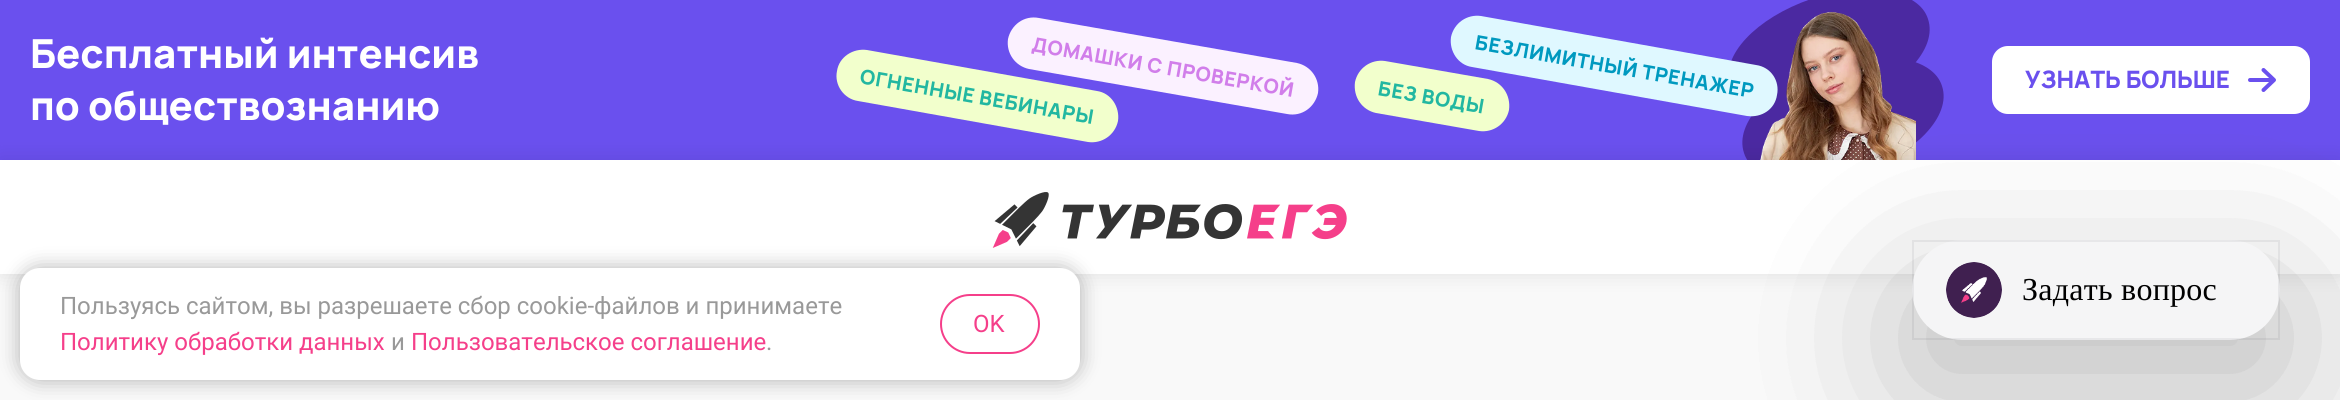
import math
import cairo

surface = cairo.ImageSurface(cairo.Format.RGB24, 2340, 400)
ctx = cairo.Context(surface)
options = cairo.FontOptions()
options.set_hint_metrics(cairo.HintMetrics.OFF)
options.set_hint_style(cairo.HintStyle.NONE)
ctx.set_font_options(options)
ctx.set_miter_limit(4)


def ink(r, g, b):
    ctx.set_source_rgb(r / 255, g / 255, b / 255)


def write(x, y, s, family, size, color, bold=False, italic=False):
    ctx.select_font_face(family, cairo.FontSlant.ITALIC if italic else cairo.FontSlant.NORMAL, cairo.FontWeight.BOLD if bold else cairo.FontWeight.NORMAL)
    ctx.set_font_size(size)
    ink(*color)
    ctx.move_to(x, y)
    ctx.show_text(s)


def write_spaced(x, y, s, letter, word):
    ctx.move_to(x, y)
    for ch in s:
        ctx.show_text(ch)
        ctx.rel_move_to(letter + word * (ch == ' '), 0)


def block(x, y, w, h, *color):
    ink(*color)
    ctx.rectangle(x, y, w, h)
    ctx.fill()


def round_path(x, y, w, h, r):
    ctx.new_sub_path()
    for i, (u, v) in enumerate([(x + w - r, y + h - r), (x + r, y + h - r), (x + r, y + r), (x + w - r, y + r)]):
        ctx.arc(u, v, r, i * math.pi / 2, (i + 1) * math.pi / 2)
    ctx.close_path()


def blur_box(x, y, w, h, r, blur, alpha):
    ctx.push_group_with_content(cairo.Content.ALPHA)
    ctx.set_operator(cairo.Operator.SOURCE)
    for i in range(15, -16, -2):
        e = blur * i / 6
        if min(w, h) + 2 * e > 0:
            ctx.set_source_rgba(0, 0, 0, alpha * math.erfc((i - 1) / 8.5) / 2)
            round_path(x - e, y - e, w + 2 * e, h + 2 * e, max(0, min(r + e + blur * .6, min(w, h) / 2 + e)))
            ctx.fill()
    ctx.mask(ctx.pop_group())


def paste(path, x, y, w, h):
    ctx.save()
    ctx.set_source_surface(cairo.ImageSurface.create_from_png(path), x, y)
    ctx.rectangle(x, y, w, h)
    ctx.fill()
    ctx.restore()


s1 = dict(family="Manrope ExtraBold", size=40, color=(255, 255, 255))
s2 = dict(family="Manrope ExtraBold", size=24, color=(106, 80, 238))
s3 = dict(family="Roboto", size=24, color=(153, 153, 153))
s4 = dict(family="Roboto", size=24, color=(245, 63, 138))

ink(249, 249, 249)
ctx.paint()
block(0, 0, 2340, 160, 106, 80, 238)
ink(242, 255, 204)
ctx.new_path()
ctx.move_to(867, 50)
ctx.line_to(1097, 91)
ctx.curve_to(1111, 93, 1120, 107, 1118, 121)
ctx.curve_to(1115, 135, 1102, 144, 1088, 142)
ctx.line_to(858, 101)
ctx.curve_to(844, 99, 834, 85, 837, 71)
ctx.curve_to(839, 57, 853, 48, 867, 50)
ctx.close_path()
ctx.fill()
ctx.select_font_face("Manrope ExtraBold")
ctx.set_font_size(20)
ink(34, 183, 161)
ctx.save()
ctx.translate(859, 83)
ctx.rotate(10 * math.pi / 180)
write_spaced(0, 0, "ОГНЕННЫЕ ВЕБИНАРЫ", 0.6, 0)
ctx.restore()
ink(251, 241, 255)
ctx.new_path()
ctx.move_to(1039, 18)
ctx.line_to(1297, 63)
ctx.curve_to(1311, 66, 1320, 79, 1318, 93)
ctx.curve_to(1315, 107, 1302, 117, 1287, 114)
ctx.line_to(1029, 69)
ctx.curve_to(1015, 66, 1006, 53, 1008, 39)
ctx.curve_to(1011, 25, 1024, 15, 1039, 18)
ctx.close_path()
ctx.fill()
ink(209, 126, 234)
ctx.save()
ctx.translate(1031, 51)
ctx.rotate(10 * math.pi / 180)
write_spaced(0, 0, "ДОМАШКИ С ПРОВЕРКОЙ", 0.6, 0)
ctx.restore()
ink(242, 255, 204)
ctx.new_path()
ctx.move_to(1385, 61)
ctx.line_to(1488, 79)
ctx.curve_to(1502, 82, 1511, 95, 1509, 110)
ctx.curve_to(1506, 124, 1493, 133, 1479, 131)
ctx.line_to(1376, 113)
ctx.curve_to(1362, 110, 1353, 97, 1355, 82)
ctx.curve_to(1358, 68, 1371, 59, 1385, 61)
ctx.close_path()
ctx.fill()
ink(34, 183, 161)
ctx.save()
ctx.translate(1377, 95)
ctx.rotate(10 * math.pi / 180)
write_spaced(0, 0, "БЕЗ ВОДЫ", 0.6, 0)
ctx.restore()
ink(75, 41, 161)
ctx.new_path()
ctx.move_to(1811, -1)
ctx.curve_to(1866, -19, 1919, -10, 1928, 19)
ctx.curve_to(1938, 49, 1902, 87, 1847, 106)
ctx.curve_to(1792, 124, 1739, 115, 1730, 86)
ctx.curve_to(1720, 56, 1756, 18, 1811, -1)
ctx.close_path()
ctx.fill()
ctx.new_path()
ctx.move_to(1825, 66)
ctx.curve_to(1880, 48, 1933, 57, 1942, 86)
ctx.curve_to(1952, 116, 1915, 154, 1861, 173)
ctx.curve_to(1806, 191, 1753, 182, 1744, 153)
ctx.curve_to(1734, 123, 1770, 85, 1825, 66)
ctx.close_path()
ctx.fill()
paste("pic1.png", 1760, 12, 156, 148)
ink(223, 248, 255)
ctx.new_path()
ctx.move_to(1481, 16)
ctx.line_to(1756, 65)
ctx.curve_to(1771, 67, 1780, 81, 1777, 95)
ctx.curve_to(1775, 109, 1762, 118, 1747, 116)
ctx.line_to(1472, 67)
ctx.curve_to(1458, 65, 1449, 51, 1451, 37)
ctx.curve_to(1454, 23, 1467, 14, 1481, 16)
ctx.close_path()
ctx.fill()
ink(0, 153, 191)
ctx.save()
ctx.translate(1474, 49)
ctx.rotate(10 * math.pi / 180)
write_spaced(0, 0, "БЕЗЛИМИТНЫЙ ТРЕНАЖЕР", 0.6, 0)
ctx.restore()
write(30, 68, "Бесплатный интенсив", **s1)
write(30, 120, "по обществознанию", **s1)
round_path(1992, 46, 318, 68, 16)
ctx.fill()
write(2025, 88, "УЗНАТЬ БОЛЬШЕ", **s2)
ctx.new_path()
ctx.move_to(2274, 80)
ctx.line_to(2250, 80)
ctx.move_to(2274, 80)
ctx.line_to(2263.5, 90)
ctx.move_to(2274, 80)
ctx.line_to(2263.5, 70)
ctx.set_line_width(4)
ctx.set_line_cap(cairo.LineCap.ROUND)
ctx.set_line_join(cairo.LineJoin.ROUND)
ctx.stroke()
ink(0, 0, 0)
blur_box(0, 160, 2340, 114, 0, 10, 0.1)
block(0, 160, 2340, 114, 255, 255, 255)
paste("pic2.png", 992, 192, 355, 56)
ink(0, 0, 0)
blur_box(20, 268, 1060, 112, 20, 10, 0.3)
ink(255, 255, 255)
round_path(20, 268, 1060, 112, 20)
ctx.fill()
write(60, 314, "Пользуясь сайтом, вы разрешаете сбор cookie-файлов и принимаете", **s3)
write(60, 350, "Политику обработки данных", **s4)
write(391, 350, "и", **s3)
write(411, 350, "Пользовательское соглашение", **s4)
write(766, 350, ".", **s3)
round_path(941, 295, 98, 58, 29)
ink(245, 63, 138)
ctx.set_line_width(2)
ctx.set_line_cap(cairo.LineCap.BUTT)
ctx.set_line_join(cairo.LineJoin.MITER)
ctx.stroke()
write(973, 332, "OK", **s4)
ink(0, 0, 0)
blur_box(1912, 288, 368, 100, 50, 84, 0.1)
blur_box(1912, 288, 368, 100, 50, 84, 0.15)
ink(245, 245, 246)
round_path(1912, 240, 368, 100, 50)
ctx.fill()
ctx.rectangle(1913, 241, 366, 98)
ctx.set_source_rgba(0.008, 0.027, 0.114, 0.06)
ctx.stroke()
paste("pic3.png", 1946, 262, 56, 56)
ctx.select_font_face("Liberation Serif")
ctx.set_font_size(32)
ink(0, 0, 0)
write_spaced(2022, 300, "Задать вопрос", 0.25, 0)
surface.write_to_png("screenshot.png")
